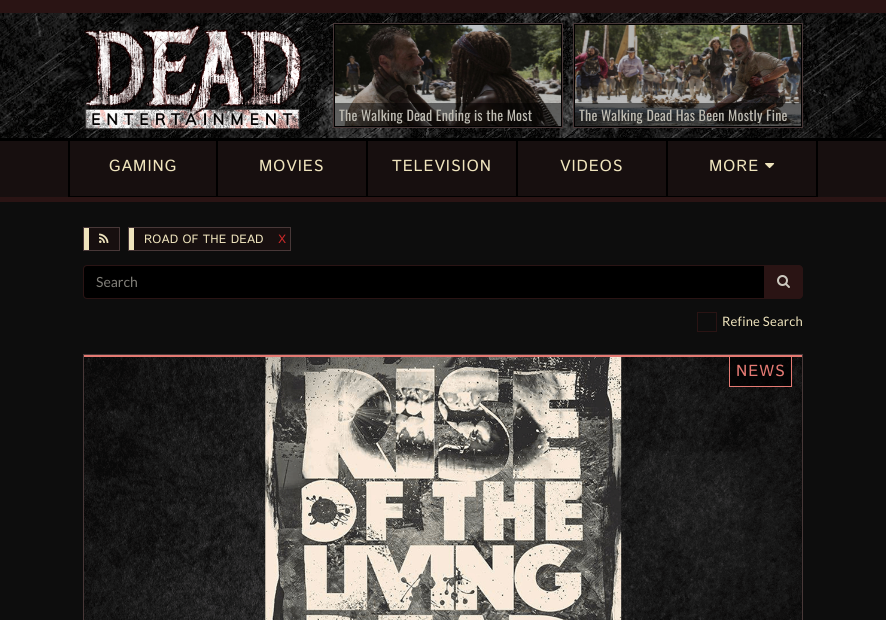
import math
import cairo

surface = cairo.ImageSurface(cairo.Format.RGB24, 886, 620)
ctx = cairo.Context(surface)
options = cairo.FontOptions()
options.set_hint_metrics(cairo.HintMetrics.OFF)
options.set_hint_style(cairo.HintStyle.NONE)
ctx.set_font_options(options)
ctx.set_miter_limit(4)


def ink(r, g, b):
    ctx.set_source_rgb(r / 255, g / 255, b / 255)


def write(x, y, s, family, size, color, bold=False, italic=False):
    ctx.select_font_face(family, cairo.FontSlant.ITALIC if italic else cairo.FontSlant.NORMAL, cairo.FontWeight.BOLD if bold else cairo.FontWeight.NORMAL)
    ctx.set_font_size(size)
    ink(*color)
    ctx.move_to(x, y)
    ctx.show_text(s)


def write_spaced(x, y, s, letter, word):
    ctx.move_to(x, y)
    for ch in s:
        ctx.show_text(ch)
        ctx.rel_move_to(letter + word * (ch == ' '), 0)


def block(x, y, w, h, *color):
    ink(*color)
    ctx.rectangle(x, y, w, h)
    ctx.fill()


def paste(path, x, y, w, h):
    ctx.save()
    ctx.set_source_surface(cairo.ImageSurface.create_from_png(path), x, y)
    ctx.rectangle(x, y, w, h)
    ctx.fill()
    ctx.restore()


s1 = dict(family="Lato", size=14, color=(128, 126, 120))

ink(13, 13, 13)
ctx.paint()
block(0, 0, 886, 13, 42, 20, 20)
paste("pic1.png", 0, 13, 886, 125)
paste("pic2.png", 84, 25, 218, 105)
ctx.rectangle(333.5, 23.5, 229, 104)
ink(72, 56, 56)
ctx.set_line_width(1)
ctx.stroke()
ctx.rectangle(334.5, 24.5, 227, 102)
ink(0, 0, 0)
ctx.stroke()
paste("pic3.png", 335, 25, 226, 101)
ctx.set_source_rgba(0, 0, 0, 0.5)
ctx.rectangle(335, 103, 226, 23)
ctx.fill()
ctx.select_font_face("Oswald")
ctx.set_font_size(14)
ink(237, 234, 222)
write_spaced(339, 121, "The Walking Dead Ending is the Most", 0.2, 0)
ctx.set_source_rgba(0, 0, 0, 0.2)
ctx.rectangle(335, 25, 226, 101)
ctx.fill()
ctx.rectangle(573.5, 23.5, 229, 104)
ink(72, 56, 56)
ctx.stroke()
ctx.rectangle(574.5, 24.5, 227, 102)
ink(0, 0, 0)
ctx.stroke()
paste("pic4.png", 575, 25, 226, 101)
ctx.set_source_rgba(0, 0, 0, 0.5)
ctx.rectangle(575, 103, 226, 23)
ctx.fill()
ink(237, 234, 222)
write_spaced(579, 121, "The Walking Dead Has Been Mostly Fine", 0.2, 0)
ctx.set_source_rgba(0, 0, 0, 0.2)
ctx.rectangle(575, 25, 226, 101)
ctx.fill()
block(0, 141, 886, 56, 23, 15, 15)
block(0, 138, 886, 3, 0, 0, 0)
block(0, 197, 886, 5, 42, 20, 20)
block(68, 196, 750, 1, 0, 0, 0)
block(216, 141, 2, 55, 0, 0, 0)
block(68, 141, 2, 55, 0, 0, 0)
ctx.select_font_face("Istok Web")
ctx.set_font_size(16)
ink(239, 228, 189)
write_spaced(109, 171, "GAMING", 1, 0)
block(366, 141, 2, 55, 0, 0, 0)
ink(239, 228, 189)
write_spaced(259, 171, "MOVIES", 1, 0)
block(516, 141, 2, 55, 0, 0, 0)
ink(239, 228, 189)
write_spaced(392, 171, "TELEVISION", 1, 0)
block(666, 141, 2, 55, 0, 0, 0)
ink(239, 228, 189)
write_spaced(560, 171, "VIDEOS", 1, 0)
block(816, 141, 2, 55, 0, 0, 0)
ink(239, 228, 189)
write_spaced(709, 171, "MORE", 1, 0)
paste("pic5.png", 765, 163, 10, 6)
block(89, 228, 30, 22, 23, 15, 15)
ctx.rectangle(83.5, 227.5, 36, 23)
ink(72, 56, 56)
ctx.stroke()
block(84, 228, 5, 22, 239, 228, 189)
paste("pic6.png", 99, 233, 10, 10)
block(134, 228, 156, 22, 23, 15, 15)
ctx.rectangle(128.5, 227.5, 162, 23)
ink(72, 56, 56)
ctx.stroke()
block(129, 228, 5, 22, 239, 228, 189)
ctx.set_font_size(12)
write_spaced(144, 243, "ROAD OF THE DEAD", 0.2, 0)
ink(204, 41, 41)
write_spaced(278, 243, "X", 0.2, 0)
ink(0, 0, 0)
ctx.new_path()
ctx.move_to(87, 265.5)
ctx.line_to(764.5, 265.5)
ctx.line_to(764.5, 298.5)
ctx.line_to(87, 298.5)
ctx.curve_to(85, 298.5, 83.5, 297, 83.5, 295)
ctx.line_to(83.5, 269)
ctx.curve_to(83.5, 267, 85, 265.5, 87, 265.5)
ctx.close_path()
ctx.fill_preserve()
ink(42, 20, 20)
ctx.stroke()
write(96, 287, "Search", **s1)
ink(42, 20, 20)
ctx.new_path()
ctx.move_to(764, 265)
ctx.line_to(799, 265)
ctx.curve_to(801, 265, 803, 267, 803, 269)
ctx.line_to(803, 295)
ctx.curve_to(803, 297, 801, 299, 799, 299)
ctx.line_to(764, 299)
ctx.close_path()
ctx.fill()
paste("pic7.png", 777, 275, 13, 13)
ctx.rectangle(697.5, 312.5, 19, 19)
ctx.stroke()
ctx.set_font_size(13)
ink(239, 228, 189)
write_spaced(722, 326, "Refine Search", 0.2, 0)
ctx.rectangle(83.5, 354.5, 719, 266)
ink(72, 56, 56)
ctx.stroke()
block(84, 355, 718, 2, 229, 122, 115)
paste("pic8.png", 84, 357, 718, 263)
ctx.set_source_rgba(0, 0, 0, 0.7)
ctx.rectangle(730, 357, 61, 29)
ctx.fill()
block(791, 357, 1, 30, 229, 122, 115)
block(729, 386, 63, 1, 229, 122, 115)
block(729, 357, 1, 30, 229, 122, 115)
ctx.select_font_face("Istok Web")
ctx.set_font_size(16)
write_spaced(736, 376, "NEWS", 1, 0)
surface.write_to_png("screenshot.png")
